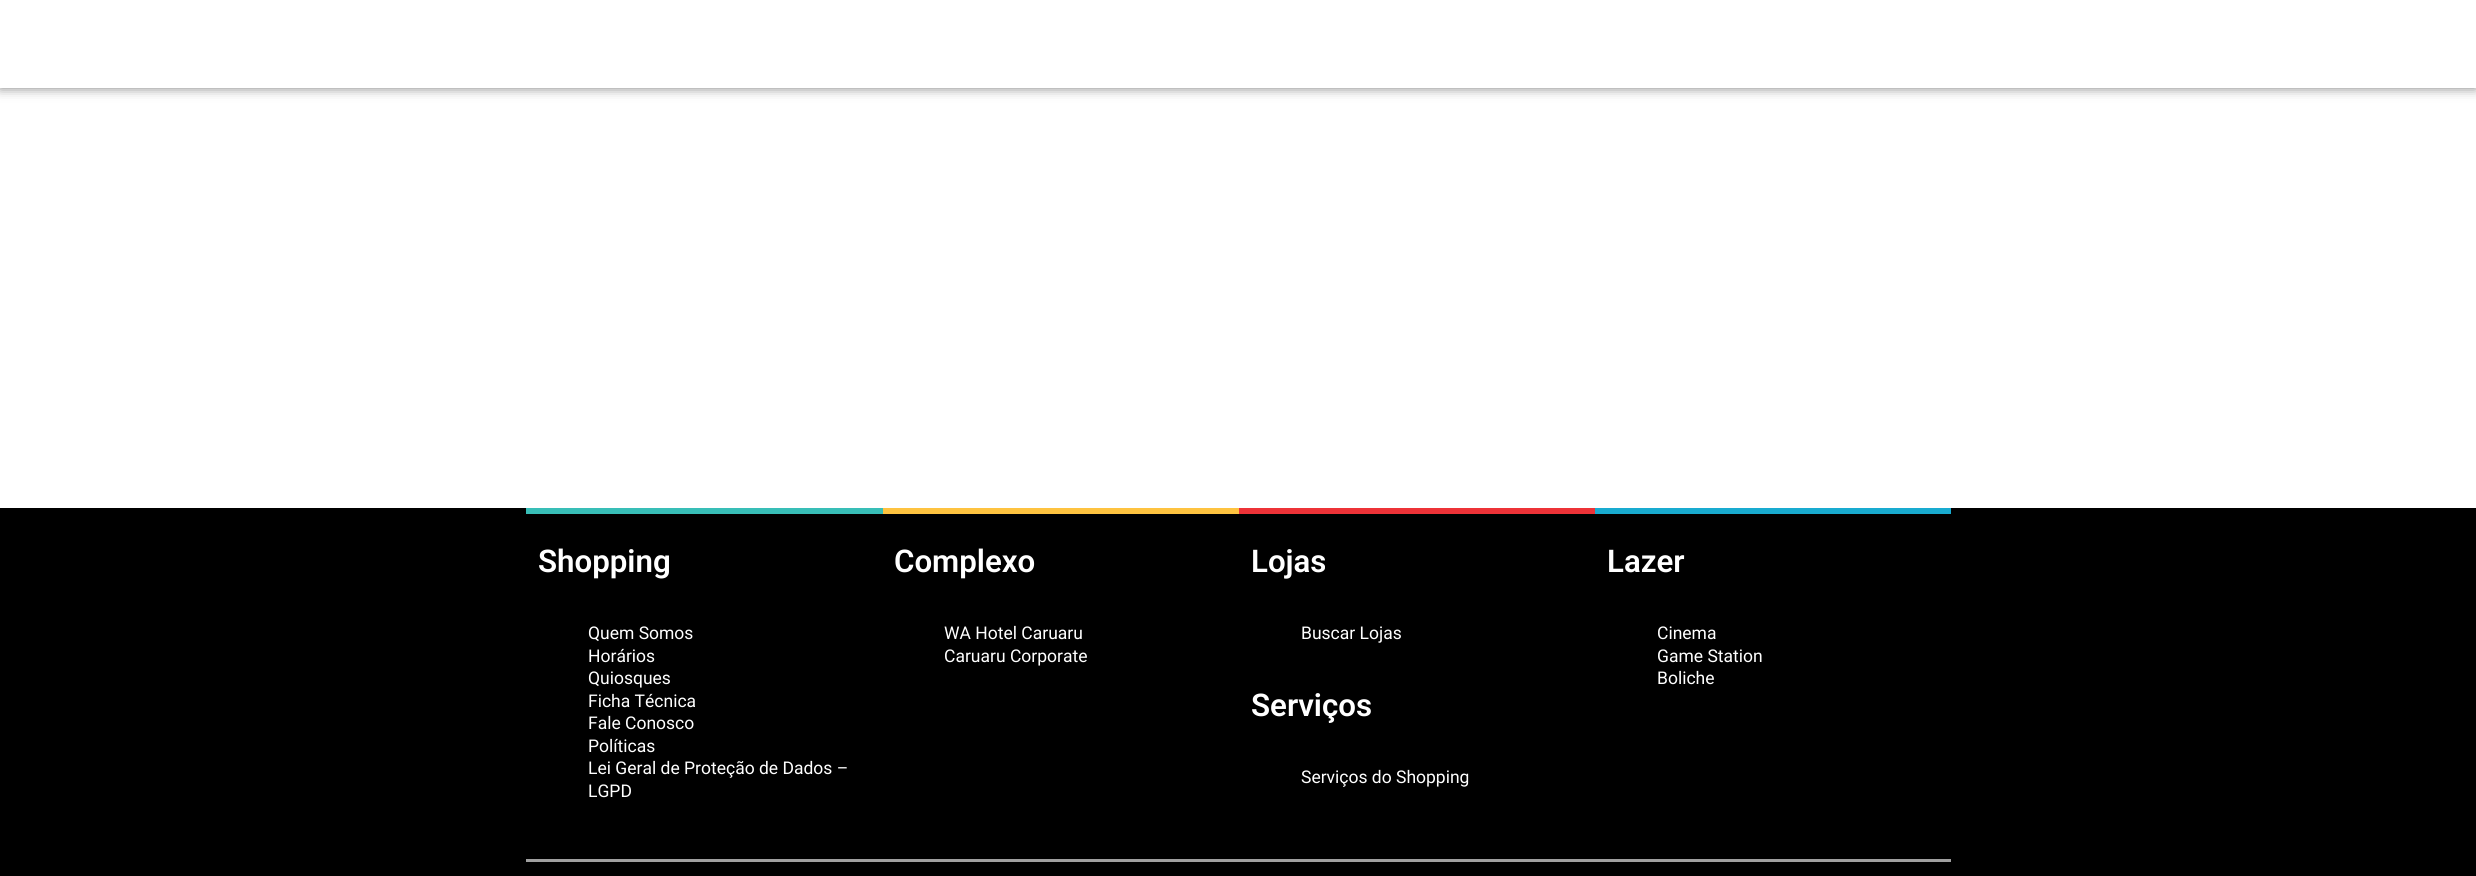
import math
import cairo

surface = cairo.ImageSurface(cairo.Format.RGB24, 2476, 876)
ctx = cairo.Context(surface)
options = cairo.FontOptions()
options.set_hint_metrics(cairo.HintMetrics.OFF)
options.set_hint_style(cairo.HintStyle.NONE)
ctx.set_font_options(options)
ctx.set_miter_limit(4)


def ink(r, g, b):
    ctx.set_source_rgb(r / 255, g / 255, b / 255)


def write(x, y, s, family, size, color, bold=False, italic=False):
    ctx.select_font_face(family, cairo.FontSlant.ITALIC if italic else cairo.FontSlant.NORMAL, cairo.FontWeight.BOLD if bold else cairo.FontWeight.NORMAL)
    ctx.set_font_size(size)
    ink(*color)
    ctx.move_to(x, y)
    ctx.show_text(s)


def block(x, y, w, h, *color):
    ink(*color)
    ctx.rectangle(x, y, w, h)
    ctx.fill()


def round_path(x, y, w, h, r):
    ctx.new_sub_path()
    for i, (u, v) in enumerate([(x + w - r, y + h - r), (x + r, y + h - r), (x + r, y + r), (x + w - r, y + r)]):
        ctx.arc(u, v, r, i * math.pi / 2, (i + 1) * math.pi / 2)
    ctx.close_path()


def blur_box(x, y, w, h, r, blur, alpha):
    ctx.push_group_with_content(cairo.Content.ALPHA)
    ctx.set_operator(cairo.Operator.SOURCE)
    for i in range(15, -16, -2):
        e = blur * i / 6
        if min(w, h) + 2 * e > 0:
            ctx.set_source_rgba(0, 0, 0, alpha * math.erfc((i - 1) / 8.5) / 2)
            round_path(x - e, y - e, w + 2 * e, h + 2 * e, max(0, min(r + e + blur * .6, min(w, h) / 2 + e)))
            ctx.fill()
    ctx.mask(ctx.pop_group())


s1 = dict(family="Roboto SemiBold", size=31.25, color=(255, 255, 255))
s2 = dict(family="Roboto", size=17.5, color=(255, 255, 255))

ink(255, 255, 255)
ctx.paint()
ctx.save()
ctx.set_fill_rule(cairo.FillRule.EVEN_ODD)
ctx.new_path()
ctx.move_to(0, 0)
ctx.line_to(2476, 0)
ctx.line_to(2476, 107)
ctx.line_to(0, 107)
ctx.close_path()
ctx.move_to(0, 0)
ctx.line_to(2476, 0)
ctx.line_to(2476, 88)
ctx.line_to(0, 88)
ctx.close_path()
ctx.clip()
ink(0, 0, 0)
blur_box(0, 0, 2476, 88, 0, 6, 0.5)
ctx.restore()
block(0, 508, 2476, 368, 0, 0, 0)
block(526, 859, 1425, 3, 159, 159, 159)
block(526, 508, 357, 6, 56, 190, 183)
write(538, 572, "Shopping", **s1)
write(588, 639, "Quem Somos", **s2)
write(588, 662, "Horários", **s2)
write(588, 684, "Quiosques", **s2)
write(588, 707, "Ficha Técnica", **s2)
write(588, 729, "Fale Conosco", **s2)
write(588, 752, "Políticas", **s2)
write(588, 774, "Lei Geral de Proteção de Dados –", **s2)
write(588, 797, "LGPD", **s2)
block(883, 508, 356, 6, 254, 195, 64)
write(894, 572, "Complexo", **s1)
write(944, 639, "WA Hotel Caruaru", **s2)
write(944, 662, "Caruaru Corporate", **s2)
block(1239, 508, 356, 6, 237, 50, 55)
write(1251, 572, "Lojas", **s1)
write(1301, 639, "Buscar Lojas", **s2)
write(1251, 716, "Serviços", **s1)
write(1301, 783, "Serviços do Shopping", **s2)
block(1595, 508, 356, 6, 25, 171, 208)
write(1607, 572, "Lazer", **s1)
write(1657, 639, "Cinema", **s2)
write(1657, 662, "Game Station", **s2)
write(1657, 684, "Boliche", **s2)
surface.write_to_png("screenshot.png")
